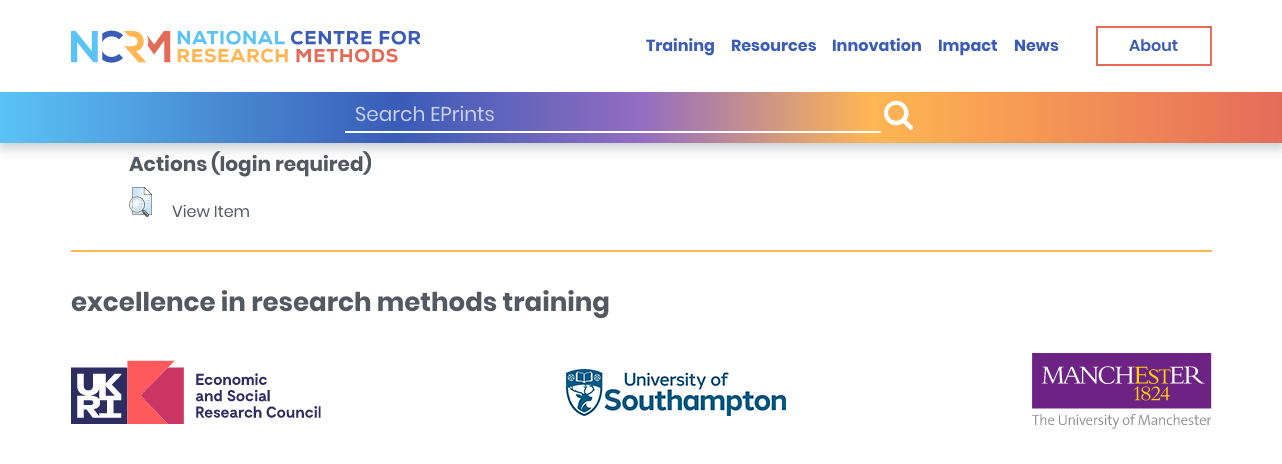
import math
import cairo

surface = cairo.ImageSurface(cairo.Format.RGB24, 1282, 464)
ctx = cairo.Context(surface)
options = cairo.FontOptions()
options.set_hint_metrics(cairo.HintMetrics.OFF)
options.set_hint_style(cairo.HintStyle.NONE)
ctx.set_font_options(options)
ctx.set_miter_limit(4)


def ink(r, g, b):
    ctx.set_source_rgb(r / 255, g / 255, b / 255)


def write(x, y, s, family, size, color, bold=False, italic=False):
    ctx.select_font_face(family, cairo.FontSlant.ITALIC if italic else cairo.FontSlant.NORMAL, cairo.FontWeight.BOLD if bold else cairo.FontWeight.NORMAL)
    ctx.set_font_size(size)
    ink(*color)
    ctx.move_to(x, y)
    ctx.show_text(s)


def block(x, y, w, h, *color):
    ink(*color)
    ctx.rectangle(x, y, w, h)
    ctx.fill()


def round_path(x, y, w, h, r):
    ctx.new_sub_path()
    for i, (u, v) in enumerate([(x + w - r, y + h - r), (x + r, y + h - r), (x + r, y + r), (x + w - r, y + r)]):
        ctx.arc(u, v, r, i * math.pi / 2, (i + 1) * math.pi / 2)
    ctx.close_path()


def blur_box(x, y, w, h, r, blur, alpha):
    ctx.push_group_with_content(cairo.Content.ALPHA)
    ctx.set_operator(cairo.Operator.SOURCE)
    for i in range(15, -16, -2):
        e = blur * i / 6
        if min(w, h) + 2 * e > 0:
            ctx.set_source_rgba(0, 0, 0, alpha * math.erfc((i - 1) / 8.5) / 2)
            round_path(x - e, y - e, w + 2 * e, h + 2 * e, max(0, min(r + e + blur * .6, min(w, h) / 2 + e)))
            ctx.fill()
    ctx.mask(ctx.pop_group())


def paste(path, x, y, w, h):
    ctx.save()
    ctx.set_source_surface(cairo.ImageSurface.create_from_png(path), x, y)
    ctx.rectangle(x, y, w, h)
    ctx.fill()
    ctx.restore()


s1 = dict(family="Poppins", size=16, color=(58, 92, 183), bold=True)
s2 = dict(family="Poppins SemiBold", size=16, color=(58, 92, 183))
s3 = dict(family="Poppins", size=20, color=(200, 207, 234))
s4 = dict(family="Poppins", size=20, color=(84, 88, 96), bold=True)
s5 = dict(family="Poppins", size=16, color=(84, 88, 96))
s6 = dict(family="Poppins", size=26, color=(84, 88, 96), bold=True)

ink(255, 255, 255)
ctx.paint()
ink(84, 88, 96)
blur_box(1, 6, 1280, 141, 0, 6.5, 0.35)
block(0, 0, 1282, 92, 255, 255, 255)
paste("pic1.png", 71, 30, 350, 33)
write(646, 51, "Training", **s1)
write(731, 51, "Resources", **s1)
write(832, 51, "Innovation", **s1)
write(938, 51, "Impact", **s1)
write(1014, 51, "News", **s1)
ctx.rectangle(1097, 27, 114, 38)
ink(229, 107, 89)
ctx.stroke()
write(1129, 51, "About", **s2)
gradient = cairo.LinearGradient(0, 118, 1282, 117)
gradient.add_color_stop_rgba(0, 0.357, 0.765, 0.961, 1)
gradient.add_color_stop_rgba(0.31, 0.227, 0.361, 0.718, 1)
gradient.add_color_stop_rgba(0.5, 0.576, 0.427, 0.757, 1)
gradient.add_color_stop_rgba(0.68, 1, 0.714, 0.325, 1)
gradient.add_color_stop_rgba(1, 0.898, 0.42, 0.349, 1)
ctx.set_source(gradient)
ctx.rectangle(0, 92, 1282, 51)
ctx.fill()
block(345, 131, 536, 2, 255, 255, 255)
write(355, 121, "Search EPrints", **s3)
paste("pic2.png", 884, 100, 29, 30)
write(129, 171, "Actions (login required)", **s4)
paste("pic3.png", 129, 187, 23, 30)
write(172, 217, "View Item", **s5)
block(71, 250, 1141, 2, 255, 182, 83)
write(71, 311, "excellence in research methods training", **s6)
paste("pic4.png", 71, 360, 250, 64)
paste("pic5.png", 566, 369, 220, 47)
paste("pic6.png", 1032, 353, 180, 76)
surface.write_to_png("screenshot.png")
